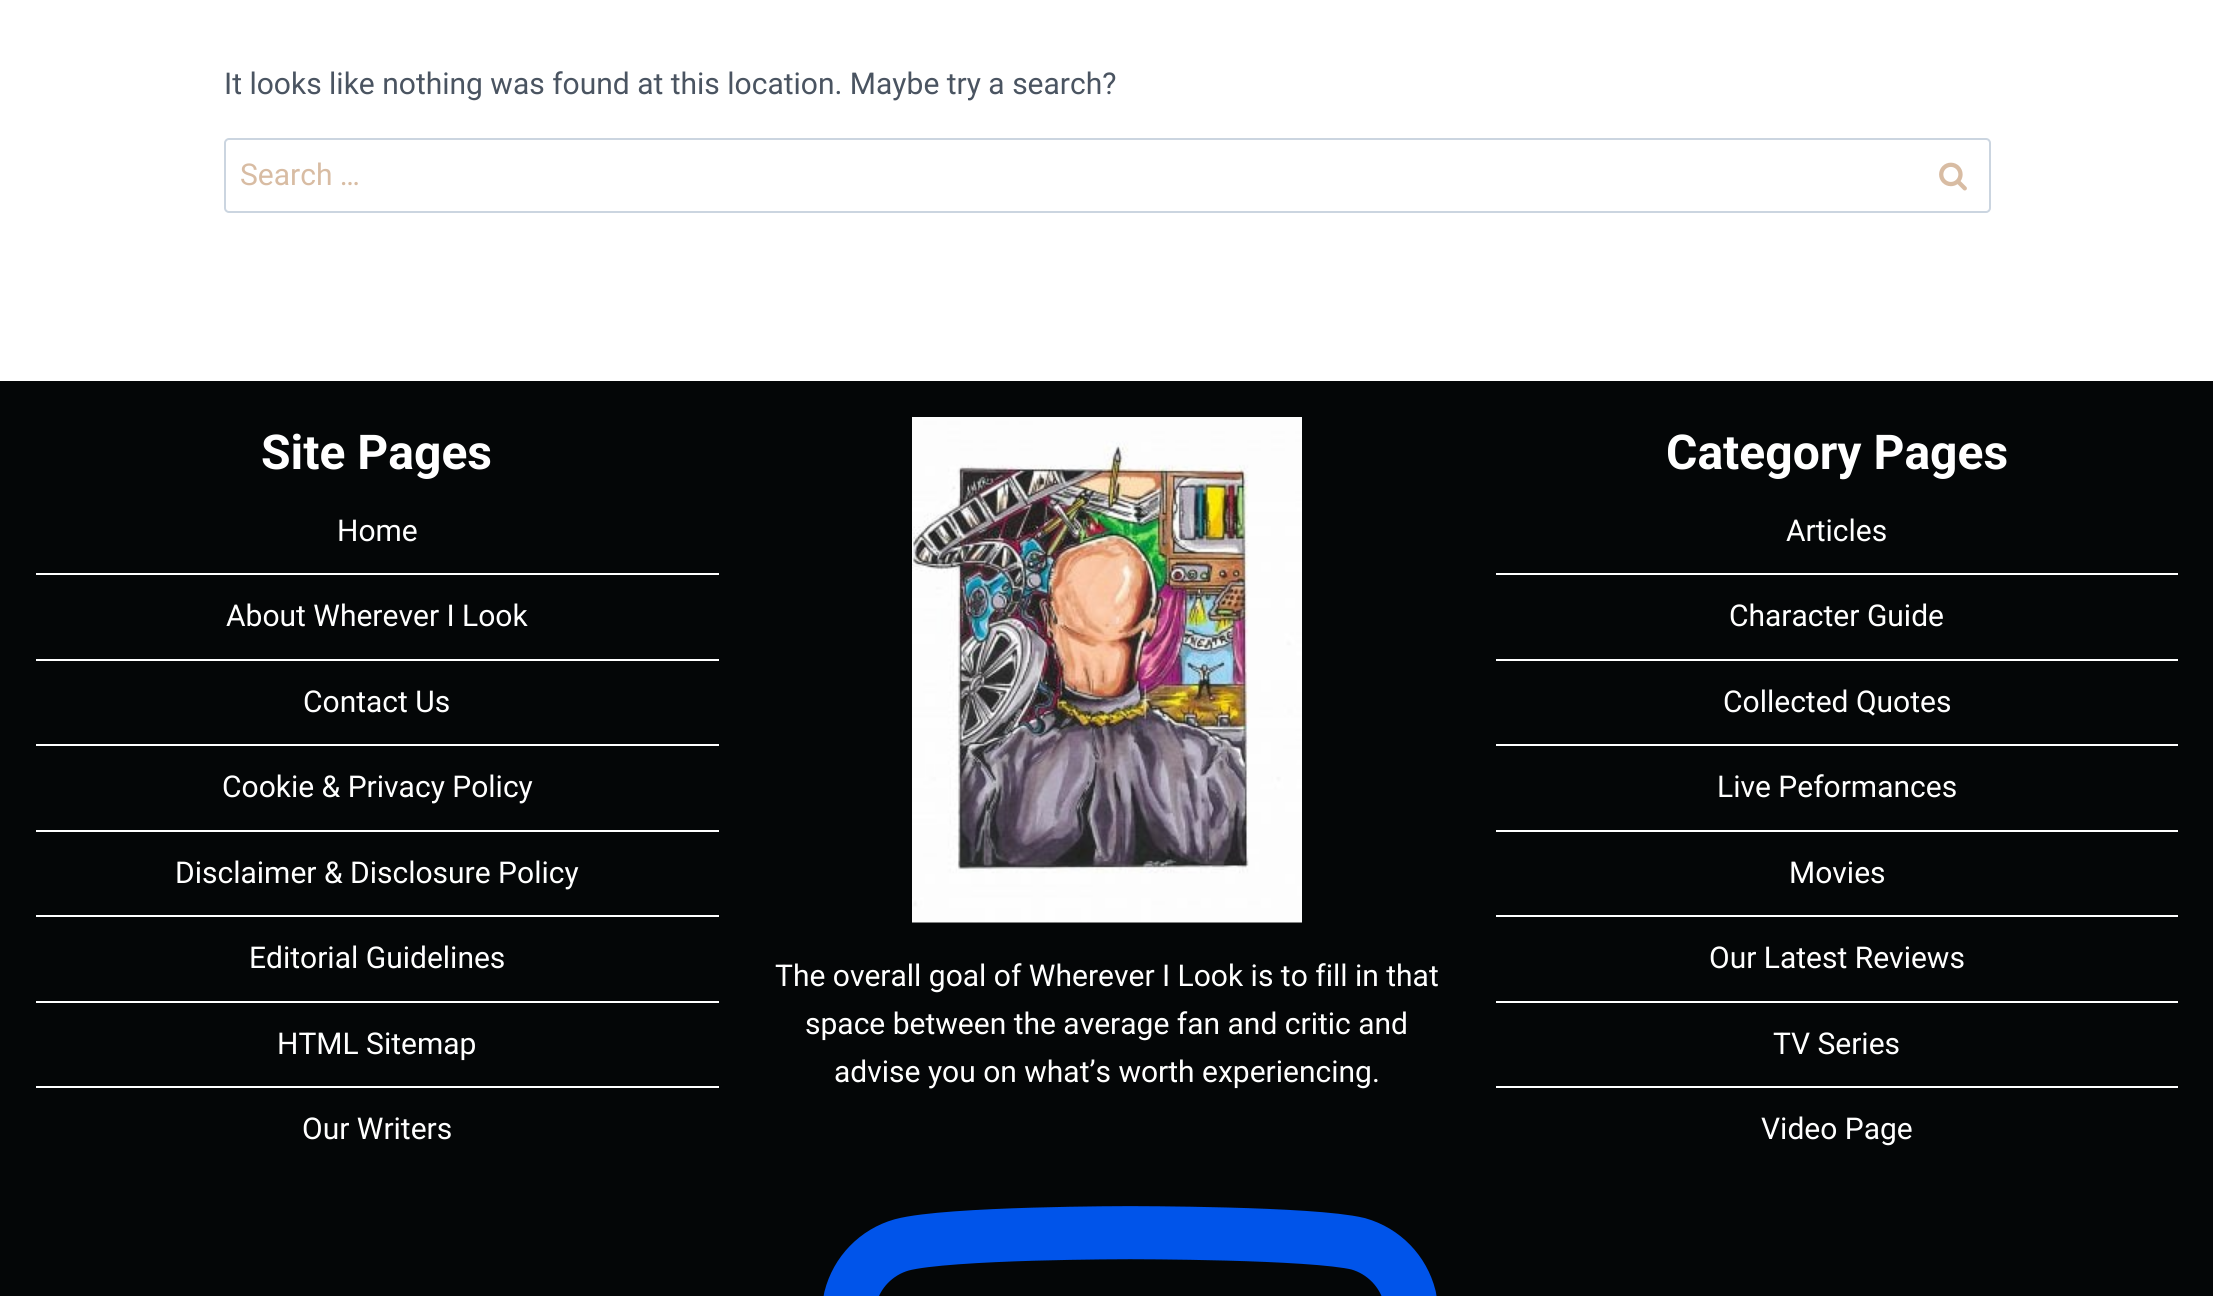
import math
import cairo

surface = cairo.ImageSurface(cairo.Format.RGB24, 2213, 1296)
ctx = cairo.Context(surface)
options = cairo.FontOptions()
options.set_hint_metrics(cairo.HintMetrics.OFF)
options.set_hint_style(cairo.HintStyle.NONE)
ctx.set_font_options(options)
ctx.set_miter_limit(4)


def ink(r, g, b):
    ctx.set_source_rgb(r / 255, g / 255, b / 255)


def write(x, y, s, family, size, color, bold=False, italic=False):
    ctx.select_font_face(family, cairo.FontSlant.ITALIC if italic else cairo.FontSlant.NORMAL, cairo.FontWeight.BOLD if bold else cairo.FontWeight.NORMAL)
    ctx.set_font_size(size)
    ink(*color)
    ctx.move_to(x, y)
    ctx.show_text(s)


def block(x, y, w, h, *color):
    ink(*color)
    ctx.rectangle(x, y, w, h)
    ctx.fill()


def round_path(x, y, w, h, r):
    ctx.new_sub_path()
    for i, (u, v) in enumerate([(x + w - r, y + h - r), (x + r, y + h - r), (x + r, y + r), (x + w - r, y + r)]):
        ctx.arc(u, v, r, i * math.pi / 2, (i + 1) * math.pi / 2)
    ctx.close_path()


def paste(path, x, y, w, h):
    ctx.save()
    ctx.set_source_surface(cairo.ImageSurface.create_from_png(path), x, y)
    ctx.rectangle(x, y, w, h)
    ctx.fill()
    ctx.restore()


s1 = dict(family="Roboto", size=30, color=(74, 84, 97))
s2 = dict(family="Roboto", size=30, color=(216, 188, 163))
s3 = dict(family="Roboto", size=48, color=(255, 255, 255), bold=True)
s4 = dict(family="Roboto", size=30, color=(255, 255, 255))

ink(255, 255, 255)
ctx.paint()
write(224, 94, "It looks like nothing was found at this location. Maybe try a search?", **s1)
round_path(225, 139, 1765, 73, 4)
ink(203, 213, 224)
ctx.stroke()
write(240, 185, "Search …", **s2)
paste("pic1.png", 1939, 162, 28, 29)
block(0, 381, 2213, 915, 4, 6, 7)
write(261, 469, "Site Pages", **s3)
block(36, 573, 683, 2, 255, 255, 255)
write(337, 541, "Home", **s4)
block(36, 659, 683, 2, 255, 255, 255)
write(226, 626, "About Wherever I Look", **s4)
block(36, 744, 683, 2, 255, 255, 255)
write(303, 712, "Contact Us", **s4)
block(36, 830, 683, 2, 255, 255, 255)
write(222, 797, "Cookie & Privacy Policy", **s4)
block(36, 915, 683, 2, 255, 255, 255)
write(175, 883, "Disclaimer & Disclosure Policy", **s4)
block(36, 1001, 683, 2, 255, 255, 255)
write(249, 968, "Editorial Guidelines", **s4)
block(36, 1086, 683, 2, 255, 255, 255)
write(277, 1054, "HTML Sitemap", **s4)
write(302, 1139, "Our Writers", **s4)
paste("pic2.png", 912, 417, 390, 506)
write(775, 986, "The overall goal of Wherever I Look is to fill in that", **s4)
write(805, 1034, "space between the average fan and critic and", **s4)
write(834, 1082, "advise you on what’s worth experiencing.", **s4)
paste("pic3.png", 823, 1206, 614, 90)
write(1666, 469, "Category Pages", **s3)
block(1496, 573, 682, 2, 255, 255, 255)
write(1786, 541, "Articles", **s4)
block(1496, 659, 682, 2, 255, 255, 255)
write(1729, 626, "Character Guide", **s4)
block(1496, 744, 682, 2, 255, 255, 255)
write(1723, 712, "Collected Quotes", **s4)
block(1496, 830, 682, 2, 255, 255, 255)
write(1717, 797, "Live Peformances", **s4)
block(1496, 915, 682, 2, 255, 255, 255)
write(1789, 883, "Movies", **s4)
block(1496, 1001, 682, 2, 255, 255, 255)
write(1709, 968, "Our Latest Reviews", **s4)
block(1496, 1086, 682, 2, 255, 255, 255)
write(1773, 1054, "TV Series", **s4)
write(1761, 1139, "Video Page", **s4)
surface.write_to_png("screenshot.png")
